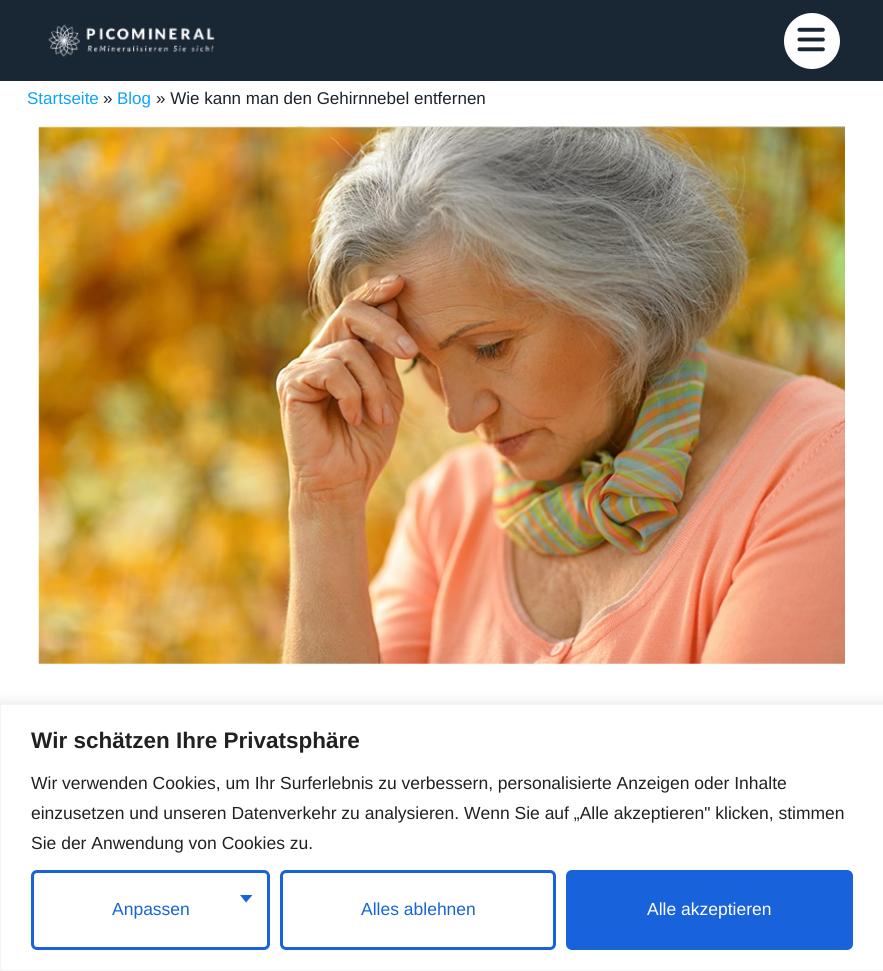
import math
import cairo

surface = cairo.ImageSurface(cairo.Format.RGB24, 883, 971)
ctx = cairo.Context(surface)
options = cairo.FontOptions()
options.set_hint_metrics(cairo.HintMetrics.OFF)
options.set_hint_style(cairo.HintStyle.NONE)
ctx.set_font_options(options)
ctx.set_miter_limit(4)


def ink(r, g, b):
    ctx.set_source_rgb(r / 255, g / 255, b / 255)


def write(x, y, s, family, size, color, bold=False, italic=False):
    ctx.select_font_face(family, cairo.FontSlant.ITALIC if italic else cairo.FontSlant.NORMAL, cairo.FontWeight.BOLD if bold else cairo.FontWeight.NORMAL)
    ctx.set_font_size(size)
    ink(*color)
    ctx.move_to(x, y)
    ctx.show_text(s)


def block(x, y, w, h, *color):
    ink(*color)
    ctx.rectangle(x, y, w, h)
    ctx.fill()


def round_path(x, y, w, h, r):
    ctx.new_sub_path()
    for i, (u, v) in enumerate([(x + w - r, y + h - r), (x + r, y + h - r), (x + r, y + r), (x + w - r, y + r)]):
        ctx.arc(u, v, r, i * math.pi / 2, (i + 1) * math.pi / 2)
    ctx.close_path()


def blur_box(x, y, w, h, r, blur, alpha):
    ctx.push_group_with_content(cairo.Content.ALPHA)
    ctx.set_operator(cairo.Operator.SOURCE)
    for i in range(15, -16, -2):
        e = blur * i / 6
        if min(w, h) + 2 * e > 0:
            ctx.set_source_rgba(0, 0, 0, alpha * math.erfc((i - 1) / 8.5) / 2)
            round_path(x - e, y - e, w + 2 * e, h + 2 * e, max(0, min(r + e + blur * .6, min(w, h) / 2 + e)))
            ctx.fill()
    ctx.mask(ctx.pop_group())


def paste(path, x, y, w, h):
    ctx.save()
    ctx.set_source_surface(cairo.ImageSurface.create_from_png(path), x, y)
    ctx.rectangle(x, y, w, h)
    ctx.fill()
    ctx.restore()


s1 = dict(family="Liberation Sans", size=17, color=(16, 163, 253))
s2 = dict(family="Liberation Sans", size=17, color=(29, 34, 41))
s3 = dict(family="Liberation Sans", size=22.5, color=(33, 33, 33), bold=True)
s4 = dict(family="Liberation Sans", size=17.5, color=(33, 33, 33))
s5 = dict(family="Liberation Sans", size=17.5, color=(24, 99, 220))
s6 = dict(family="Liberation Sans", size=17.5, color=(255, 255, 255))

ink(255, 255, 255)
ctx.paint()
block(0, 0, 883, 81, 25, 38, 52)
paste("pic1.png", 48, 24, 167, 33)
ink(255, 255, 255)
ctx.arc(812, 41, 28, 0, 2 * math.pi)
ctx.fill()
paste("pic2.png", 797, 27, 28, 25)
write(27, 104, "Startseite", **s1)
write(103, 104, "»", **s2)
write(117, 104, "Blog", **s1)
write(156, 104, "» Wie kann man den Gehirnnebel entfernen", **s2)
paste("pic3.png", 38, 126, 807, 538)
ink(172, 171, 171)
blur_box(0, 703, 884, 267, 0, 6, 0.3)
ink(255, 255, 255)
ctx.rectangle(0.5, 704.5, 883, 266)
ctx.fill_preserve()
ink(244, 244, 244)
ctx.set_line_width(1)
ctx.stroke()
write(31, 748, "Wir schätzen Ihre Privatsphäre", **s3)
write(31, 789, "Wir verwenden Cookies, um Ihr Surferlebnis zu verbessern, personalisierte Anzeigen oder Inhalte", **s4)
write(31, 819, "einzusetzen und unseren Datenverkehr zu analysieren. Wenn Sie auf „Alle akzeptieren\" klicken, stimmen", **s4)
write(31, 849, "Sie der Anwendung von Cookies zu.", **s4)
round_path(32.5, 871.5, 236, 77, 4.5)
ink(24, 99, 220)
ctx.set_line_width(3)
ctx.stroke()
ctx.new_path()
ctx.move_to(240, 895)
ctx.line_to(252.5, 895)
ctx.line_to(246, 902.5)
ctx.close_path()
ctx.fill()
write(112, 915, "Anpassen", **s5)
round_path(281.5, 871.5, 273, 77, 4.5)
ctx.stroke()
write(361, 915, "Alles ablehnen", **s5)
round_path(567.5, 871.5, 284, 77, 4.5)
ctx.fill_preserve()
ctx.stroke()
write(647, 915, "Alle akzeptieren", **s6)
surface.write_to_png("screenshot.png")
